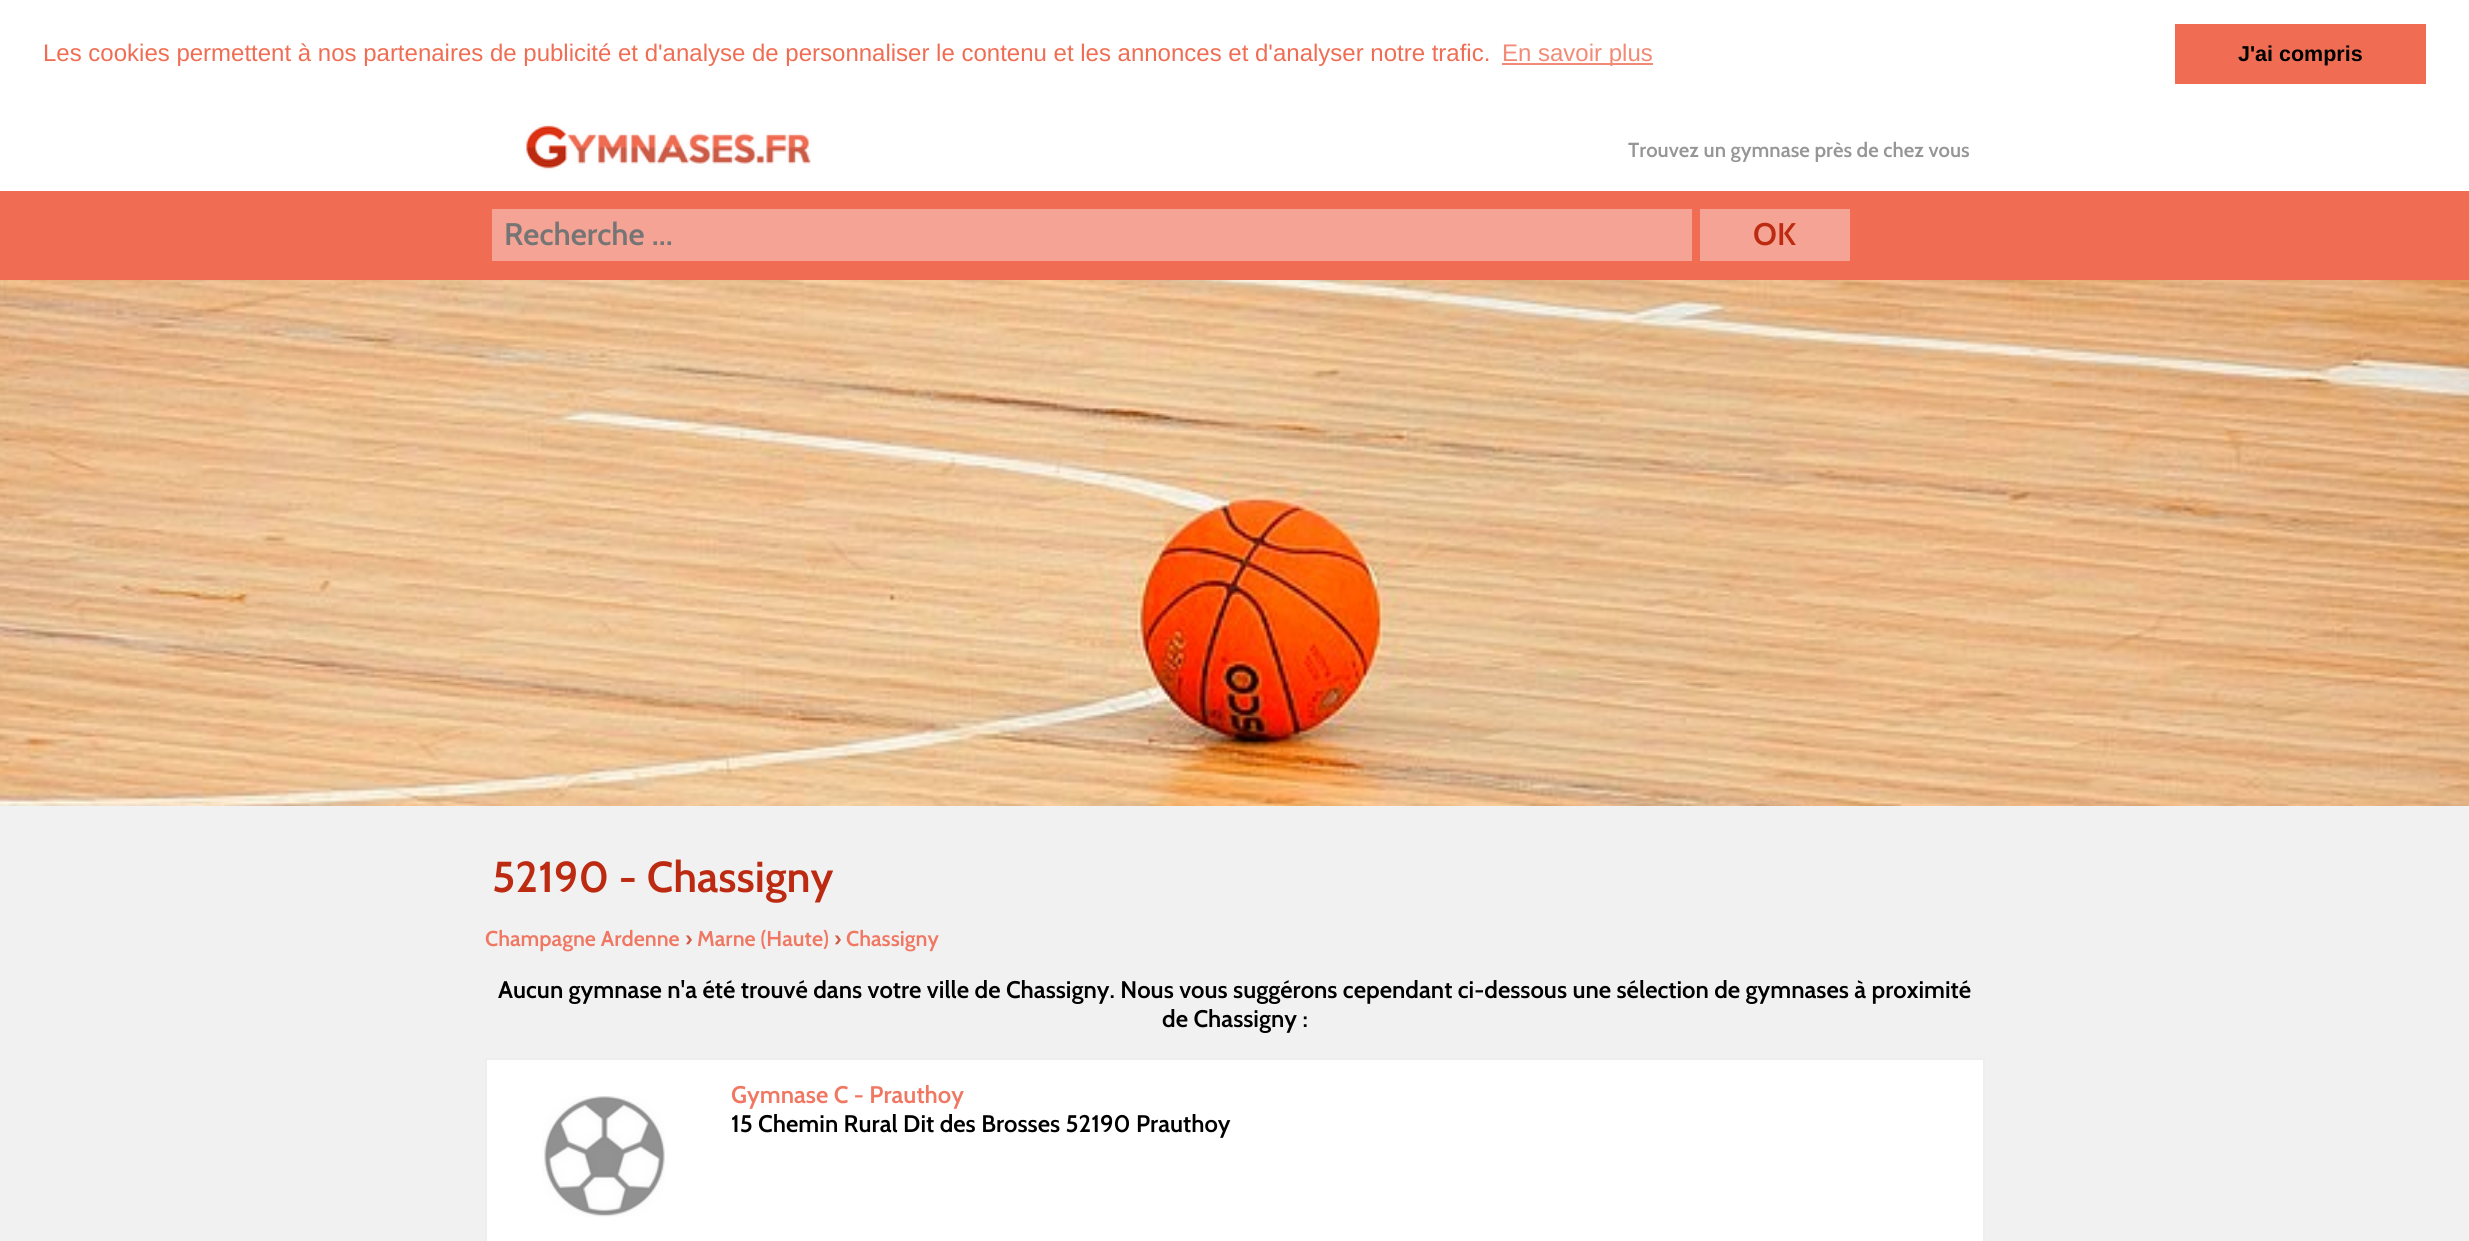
import math
import cairo

surface = cairo.ImageSurface(cairo.Format.RGB24, 2469, 1241)
ctx = cairo.Context(surface)
options = cairo.FontOptions()
options.set_hint_metrics(cairo.HintMetrics.OFF)
options.set_hint_style(cairo.HintStyle.NONE)
ctx.set_font_options(options)
ctx.set_miter_limit(4)


def ink(r, g, b):
    ctx.set_source_rgb(r / 255, g / 255, b / 255)


def write(x, y, s, family, size, color, bold=False, italic=False):
    ctx.select_font_face(family, cairo.FontSlant.ITALIC if italic else cairo.FontSlant.NORMAL, cairo.FontWeight.BOLD if bold else cairo.FontWeight.NORMAL)
    ctx.set_font_size(size)
    ink(*color)
    ctx.move_to(x, y)
    ctx.show_text(s)


def block(x, y, w, h, *color):
    ink(*color)
    ctx.rectangle(x, y, w, h)
    ctx.fill()


def paste(path, x, y, w, h):
    ctx.save()
    ctx.set_source_surface(cairo.ImageSurface.create_from_png(path), x, y)
    ctx.rectangle(x, y, w, h)
    ctx.fill()
    ctx.restore()


s1 = dict(family="Liberation Sans", size=24, color=(240, 109, 84))
s2 = dict(family="Liberation Sans", size=24, color=(243, 138, 118))
s3 = dict(family="Liberation Sans", size=21.5, color=(0, 0, 0), bold=True)
s4 = dict(family="Cabin SemiBold", size=20.4, color=(150, 150, 150))
s5 = dict(family="Cabin SemiBold", size=31.25, color=(117, 117, 117))
s6 = dict(family="Cabin SemiBold", size=31.25, color=(188, 43, 17))
s7 = dict(family="Cabin SemiBold", size=43.25, color=(188, 43, 17))
s8 = dict(family="Cabin SemiBold", size=21.5, color=(240, 119, 98))
s9 = dict(family="Cabin SemiBold", size=21.5, color=(204, 93, 72))
s10 = dict(family="Cabin SemiBold", size=24, color=(0, 0, 0))
s11 = dict(family="Cabin SemiBold", size=24, color=(240, 119, 98))

ink(241, 241, 241)
ctx.paint()
block(0, 0, 2469, 191, 255, 255, 255)
write(43, 61, "Les cookies permettent à nos partenaires de publicité et d'analyse de personnaliser le contenu et les annonces et d'analyser notre trafic.", **s1)
block(1502, 63, 151, 2, 243, 138, 118)
write(1502, 61, "En savoir plus", **s2)
block(2175, 24, 251, 60, 240, 109, 84)
write(2238, 61, "J'ai compris", **s3)
paste("pic1.png", 524, 123, 287, 48)
write(1628, 157, "Trouvez un gymnase près de chez vous", **s4)
block(0, 191, 2469, 89, 240, 109, 84)
block(492, 209, 1200, 52, 245, 163, 148)
write(504, 245, "Recherche ...", **s5)
block(1700, 209, 150, 52, 245, 163, 148)
write(1753, 245, "OK", **s6)
paste("pic2.png", 0, 280, 2469, 526)
write(492, 892, "52190 - Chassigny", **s7)
write(485, 946, "Champagne Ardenne", **s8)
write(685, 946, "›", **s9)
write(697, 946, "Marne (Haute)", **s8)
write(834, 946, "›", **s9)
write(846, 946, "Chassigny", **s8)
write(498, 998, "Aucun gymnase n'a été trouvé dans votre ville de Chassigny. Nous vous suggérons cependant ci-dessous une sélection de gymnases à proximité", **s10)
write(1162, 1027, "de Chassigny :", **s10)
ink(255, 255, 255)
ctx.rectangle(486, 1059, 1498, 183)
ctx.fill_preserve()
ink(238, 238, 238)
ctx.stroke()
paste("pic3.png", 542, 1096, 123, 121)
write(731, 1103, "Gymnase C - Prauthoy", **s11)
write(731, 1132, "15 Chemin Rural Dit des Brosses 52190 Prauthoy", **s10)
surface.write_to_png("screenshot.png")
